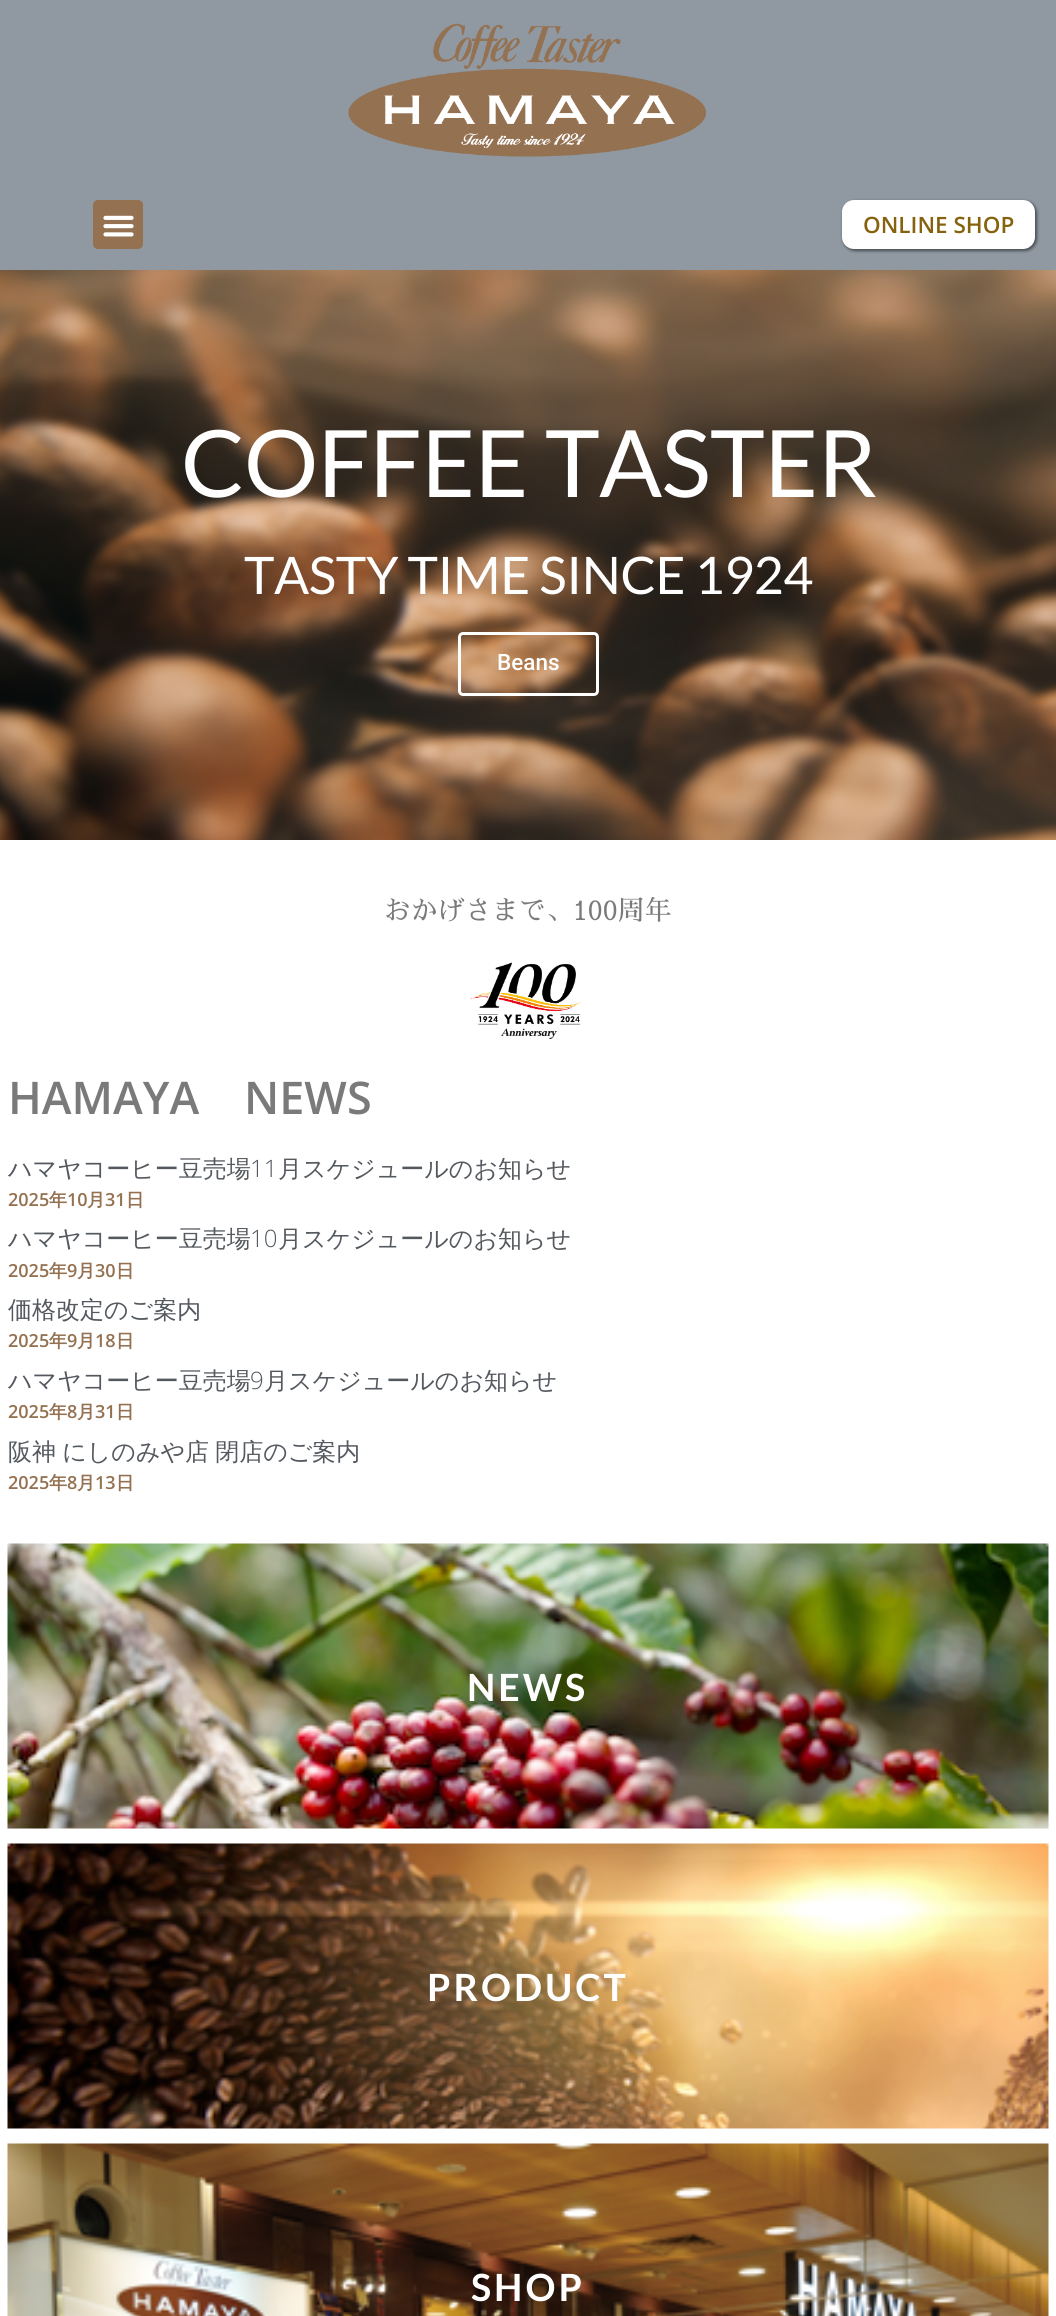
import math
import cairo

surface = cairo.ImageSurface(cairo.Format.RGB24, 1056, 2316)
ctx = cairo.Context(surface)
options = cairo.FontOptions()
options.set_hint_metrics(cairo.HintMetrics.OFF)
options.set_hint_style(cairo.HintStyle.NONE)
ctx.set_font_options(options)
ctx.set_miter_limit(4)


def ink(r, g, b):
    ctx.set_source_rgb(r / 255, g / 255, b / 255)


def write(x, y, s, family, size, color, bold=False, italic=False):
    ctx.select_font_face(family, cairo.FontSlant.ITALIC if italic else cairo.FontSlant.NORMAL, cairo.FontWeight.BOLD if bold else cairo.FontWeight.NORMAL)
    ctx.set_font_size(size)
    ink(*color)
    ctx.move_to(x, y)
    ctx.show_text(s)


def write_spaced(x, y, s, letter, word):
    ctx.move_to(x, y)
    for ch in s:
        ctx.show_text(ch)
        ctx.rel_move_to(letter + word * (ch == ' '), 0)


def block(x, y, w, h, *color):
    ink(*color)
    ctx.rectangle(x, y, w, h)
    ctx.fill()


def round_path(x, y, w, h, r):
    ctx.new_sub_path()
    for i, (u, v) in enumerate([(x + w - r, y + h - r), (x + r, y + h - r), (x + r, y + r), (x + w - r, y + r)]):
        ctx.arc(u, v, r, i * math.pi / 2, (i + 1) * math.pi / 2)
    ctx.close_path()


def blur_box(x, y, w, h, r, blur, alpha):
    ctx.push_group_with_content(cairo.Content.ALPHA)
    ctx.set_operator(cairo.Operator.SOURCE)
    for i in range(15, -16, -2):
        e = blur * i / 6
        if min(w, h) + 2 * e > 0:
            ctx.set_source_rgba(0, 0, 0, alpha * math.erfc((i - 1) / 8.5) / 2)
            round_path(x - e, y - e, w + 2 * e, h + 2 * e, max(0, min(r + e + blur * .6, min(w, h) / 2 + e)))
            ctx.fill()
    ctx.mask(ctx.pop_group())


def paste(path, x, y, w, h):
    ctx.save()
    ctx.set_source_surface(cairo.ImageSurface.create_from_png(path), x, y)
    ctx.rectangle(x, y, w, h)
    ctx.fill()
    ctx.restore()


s1 = dict(family="Open Sans SemiBold", size=22.5, color=(134, 98, 14))
s2 = dict(family="Roboto Medium", size=22.5, color=(255, 255, 255))
s3 = dict(family="Sawarabi Mincho", size=27, color=(122, 122, 122))
s4 = dict(family="Open Sans SemiBold", size=45, color=(122, 122, 122))
s5 = dict(family="WenQuanYi Zen Hei Medium", size=24, color=(84, 89, 95))
s6 = dict(family="Open Sans Light", size=24, color=(84, 89, 95))
s7 = dict(family="Open Sans SemiBold", size=18, color=(148, 113, 81))
s8 = dict(family="WenQuanYi Zen Hei", size=18, color=(148, 113, 81), bold=True)

ink(255, 255, 255)
ctx.paint()
block(0, 0, 1056, 270, 144, 153, 162)
paste("pic1.png", 348, 23, 358, 134)
ink(148, 113, 81)
round_path(93, 200, 50, 49, 5)
ctx.fill()
paste("pic2.png", 103, 215, 31, 22)
ink(0, 0, 0)
blur_box(843, 201, 194, 50, 12, 1.5, 0.5)
ink(255, 255, 255)
round_path(842, 200, 193, 49, 12)
ctx.fill()
write(863, 233, "ONLINE SHOP", **s1)
paste("pic3.png", 0, 270, 1056, 570)
ctx.select_font_face("Lato")
ctx.set_font_size(93)
ink(255, 255, 255)
write_spaced(181, 497, "COFFEE TASTER", -0.75, 0)
ctx.set_font_size(51.75)
write_spaced(244, 594, "TASTY TIME SINCE 1924", -0.45, 0)
round_path(459.5, 633.5, 138, 61, 3.5)
ctx.set_line_width(3)
ctx.stroke()
write(497, 670, "Beans", **s2)
write(384, 920, "おかげさまで、100周年", **s3)
paste("pic4.png", 470, 962, 112, 77)
write(8, 1114, "HAMAYA", **s4)
write(244, 1114, "NEWS", **s4)
write(8, 1177, "ハマヤコーヒー豆売場", **s5)
write(250, 1177, "11", **s6)
write(278, 1177, "月スケジュールのお知らせ", **s5)
write(8, 1206, "2025", **s7)
write(49, 1206, "年", **s8)
write(67, 1206, "10", **s7)
write(87, 1206, "月", **s8)
write(105, 1206, "31", **s7)
write(126, 1206, "日", **s8)
write(8, 1247, "ハマヤコーヒー豆売場", **s5)
write(250, 1247, "10", **s6)
write(278, 1247, "月スケジュールのお知らせ", **s5)
write(8, 1277, "2025", **s7)
write(49, 1277, "年", **s8)
write(67, 1277, "9", **s7)
write(77, 1277, "月", **s8)
write(95, 1277, "30", **s7)
write(116, 1277, "日", **s8)
write(8, 1318, "価格改定のご案内", **s5)
write(8, 1347, "2025", **s7)
write(49, 1347, "年", **s8)
write(67, 1347, "9", **s7)
write(77, 1347, "月", **s8)
write(95, 1347, "18", **s7)
write(116, 1347, "日", **s8)
write(8, 1389, "ハマヤコーヒー豆売場", **s5)
write(250, 1389, "9", **s6)
write(264, 1389, "月スケジュールのお知らせ", **s5)
write(8, 1418, "2025", **s7)
write(49, 1418, "年", **s8)
write(67, 1418, "8", **s7)
write(77, 1418, "月", **s8)
write(95, 1418, "31", **s7)
write(116, 1418, "日", **s8)
ctx.select_font_face("WenQuanYi Zen Hei Medium")
ctx.set_font_size(24)
ink(84, 89, 95)
write_spaced(8, 1460, "阪神 にしのみや店 閉店のご案内", 0, -1)
write(8, 1489, "2025", **s7)
write(49, 1489, "年", **s8)
write(67, 1489, "8", **s7)
write(77, 1489, "月", **s8)
write(95, 1489, "13", **s7)
write(116, 1489, "日", **s8)
paste("pic5.png", 7, 1543, 1042, 286)
ctx.select_font_face("Lato", cairo.FontSlant.NORMAL, cairo.FontWeight.BOLD)
ctx.set_font_size(37.5)
ink(255, 255, 255)
write_spaced(467, 1701, "NEWS", 3, 0)
paste("pic6.png", 7, 1843, 1042, 286)
write_spaced(427, 2001, "PRODUCT", 3, 0)
paste("pic7.png", 7, 2143, 1042, 173)
write_spaced(471, 2301, "SHOP", 3, 0)
surface.write_to_png("screenshot.png")
